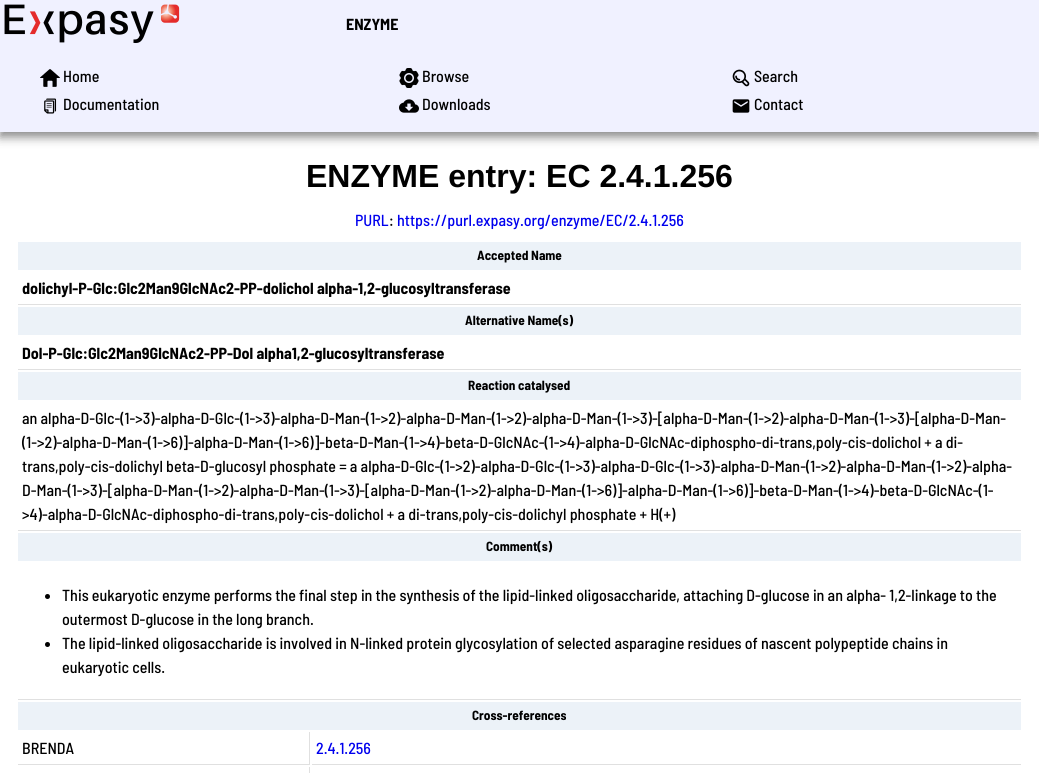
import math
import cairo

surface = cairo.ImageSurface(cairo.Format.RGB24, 1039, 773)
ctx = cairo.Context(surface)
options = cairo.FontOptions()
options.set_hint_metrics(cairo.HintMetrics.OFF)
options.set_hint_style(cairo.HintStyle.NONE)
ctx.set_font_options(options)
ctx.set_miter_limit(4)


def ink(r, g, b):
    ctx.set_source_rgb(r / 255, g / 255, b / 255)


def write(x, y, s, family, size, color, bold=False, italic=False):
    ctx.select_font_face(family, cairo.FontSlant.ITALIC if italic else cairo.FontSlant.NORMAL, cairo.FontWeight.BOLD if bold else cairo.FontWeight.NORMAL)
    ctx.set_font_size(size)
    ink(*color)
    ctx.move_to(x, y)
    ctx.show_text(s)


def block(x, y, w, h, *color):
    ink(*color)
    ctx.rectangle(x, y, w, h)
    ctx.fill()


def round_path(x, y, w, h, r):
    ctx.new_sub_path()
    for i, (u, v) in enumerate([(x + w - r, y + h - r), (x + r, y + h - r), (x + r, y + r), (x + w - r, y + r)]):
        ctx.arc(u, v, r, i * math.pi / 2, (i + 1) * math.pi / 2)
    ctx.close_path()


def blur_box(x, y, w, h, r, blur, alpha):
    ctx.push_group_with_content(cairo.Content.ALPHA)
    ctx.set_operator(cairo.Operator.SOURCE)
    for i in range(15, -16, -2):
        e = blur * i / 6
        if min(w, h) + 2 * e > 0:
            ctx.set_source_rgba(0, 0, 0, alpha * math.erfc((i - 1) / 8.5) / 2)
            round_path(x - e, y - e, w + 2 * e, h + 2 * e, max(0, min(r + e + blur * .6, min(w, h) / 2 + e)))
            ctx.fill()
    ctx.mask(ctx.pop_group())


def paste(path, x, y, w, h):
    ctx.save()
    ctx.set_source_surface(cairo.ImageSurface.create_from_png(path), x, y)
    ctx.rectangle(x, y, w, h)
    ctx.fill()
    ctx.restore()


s1 = dict(family="Barlow Semi Condensed", size=16, color=(0, 0, 0), bold=True)
s2 = dict(family="Barlow Semi Condensed Medium", size=16, color=(0, 0, 0))
s3 = dict(family="Liberation Sans", size=32, color=(0, 0, 0), bold=True)
s4 = dict(family="Barlow Semi Condensed Medium", size=16, color=(0, 0, 238))
s5 = dict(family="Barlow Semi Condensed", size=13.25, color=(0, 0, 0), bold=True)

ink(255, 255, 255)
ctx.paint()
ink(136, 136, 136)
blur_box(0, 5, 1039, 132, 0, 5, 1)
block(0, 0, 1039, 132, 240, 241, 255)
paste("pic1.png", 4, 4, 176, 39)
write(346, 30, "ENZYME", **s1)
paste("pic2.png", 40, 69, 20, 18)
write(63, 82, "Home", **s2)
paste("pic3.png", 399, 68, 20, 20)
write(422, 82, "Browse", **s2)
paste("pic4.png", 732, 69, 18, 18)
write(754, 82, "Search", **s2)
paste("pic5.png", 44, 98, 13, 16)
write(63, 110, "Documentation", **s2)
paste("pic6.png", 399, 99, 20, 14)
write(422, 110, "Downloads", **s2)
paste("pic7.png", 732, 99, 18, 14)
write(754, 110, "Contact", **s2)
write(306, 187, "ENZYME entry: EC 2.4.1.256", **s3)
write(355, 226, "PURL", **s4)
write(389, 226, ":", **s2)
write(397, 226, "https://purl.expasy.org/enzyme/EC/2.4.1.256", **s4)
block(18, 242, 1003, 28, 236, 242, 248)
write(477, 260, "Accepted Name", **s5)
block(18, 304, 1003, 1, 224, 224, 224)
write(22, 294, "dolichyl-P-Glc:Glc2Man9GlcNAc2-PP-dolichol alpha-1,2-glucosyltransferase", **s1)
block(18, 307, 1003, 28, 236, 242, 248)
write(465, 325, "Alternative Name(s)", **s5)
block(18, 369, 1003, 1, 224, 224, 224)
write(22, 359, "Dol-P-Glc:Glc2Man9GlcNAc2-PP-Dol alpha1,2-glucosyltransferase", **s1)
block(18, 372, 1003, 28, 236, 242, 248)
write(468, 390, "Reaction catalysed", **s5)
block(18, 530, 1003, 1, 224, 224, 224)
write(22, 424, "an alpha-D-Glc-(1->3)-alpha-D-Glc-(1->3)-alpha-D-Man-(1->2)-alpha-D-Man-(1->2)-alpha-D-Man-(1->3)-[alpha-D-Man-(1->2)-alpha-D-Man-(1->3)-[alpha-D-Man-", **s2)
write(22, 448, "(1->2)-alpha-D-Man-(1->6)]-alpha-D-Man-(1->6)]-beta-D-Man-(1->4)-beta-D-GlcNAc-(1->4)-alpha-D-GlcNAc-diphospho-di-trans,poly-cis-dolichol + a di-", **s2)
write(22, 472, "trans,poly-cis-dolichyl beta-D-glucosyl phosphate = a alpha-D-Glc-(1->2)-alpha-D-Glc-(1->3)-alpha-D-Glc-(1->3)-alpha-D-Man-(1->2)-alpha-D-Man-(1->2)-alpha-", **s2)
write(22, 496, "D-Man-(1->3)-[alpha-D-Man-(1->2)-alpha-D-Man-(1->3)-[alpha-D-Man-(1->2)-alpha-D-Man-(1->6)]-alpha-D-Man-(1->6)]-beta-D-Man-(1->4)-beta-D-GlcNAc-(1-", **s2)
write(22, 520, ">4)-alpha-D-GlcNAc-diphospho-di-trans,poly-cis-dolichol + a di-trans,poly-cis-dolichyl phosphate + H(+)", **s2)
block(18, 533, 1003, 28, 236, 242, 248)
write(486, 551, "Comment(s)", **s5)
block(18, 699, 1003, 1, 224, 224, 224)
ink(0, 0, 0)
ctx.new_path()
ctx.arc(47.5, 596.5, 2.5, 0, 2 * math.pi)
ctx.fill()
write(62, 601, "This eukaryotic enzyme performs the final step in the synthesis of the lipid-linked oligosaccharide, attaching D-glucose in an alpha- 1,2-linkage to the", **s2)
write(62, 625, "outermost D-glucose in the long branch.", **s2)
ctx.new_path()
ctx.arc(47.5, 644.5, 2.5, 0, 2 * math.pi)
ctx.fill()
write(62, 649, "The lipid-linked oligosaccharide is involved in N-linked protein glycosylation of selected asparagine residues of nascent polypeptide chains in", **s2)
write(62, 673, "eukaryotic cells.", **s2)
block(18, 702, 1003, 28, 236, 242, 248)
write(472, 720, "Cross-references", **s5)
block(309, 732, 1, 33, 224, 224, 224)
block(18, 764, 292, 1, 224, 224, 224)
write(22, 754, "BRENDA", **s2)
block(312, 764, 709, 1, 224, 224, 224)
write(316, 754, "2.4.1.256", **s4)
block(309, 767, 1, 6, 224, 224, 224)
surface.write_to_png("screenshot.png")
